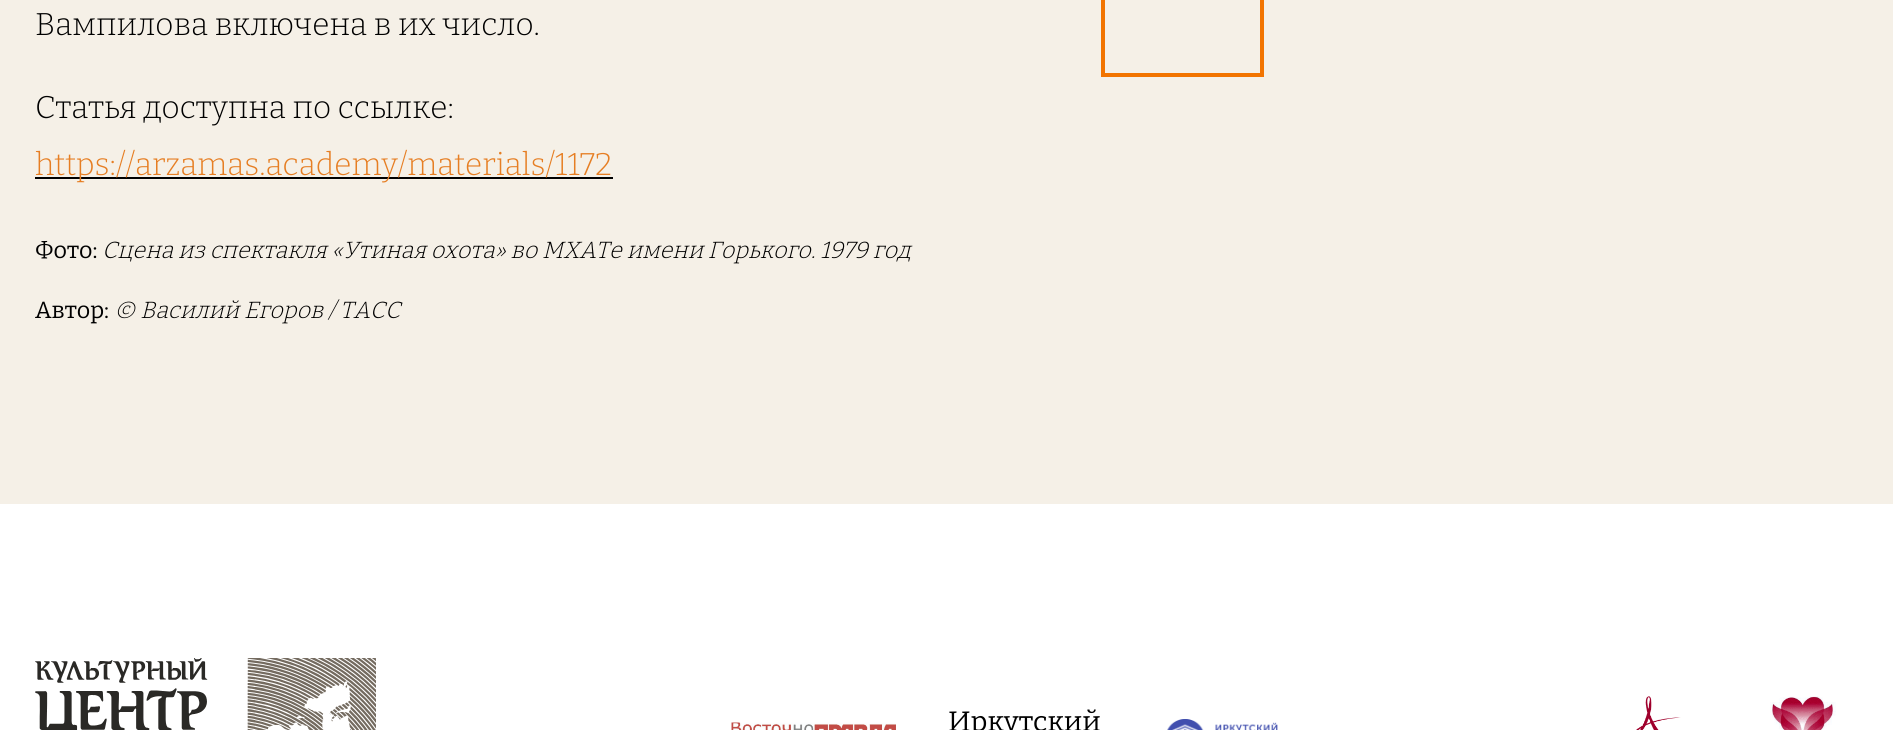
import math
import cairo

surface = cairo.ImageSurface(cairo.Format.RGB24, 1893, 730)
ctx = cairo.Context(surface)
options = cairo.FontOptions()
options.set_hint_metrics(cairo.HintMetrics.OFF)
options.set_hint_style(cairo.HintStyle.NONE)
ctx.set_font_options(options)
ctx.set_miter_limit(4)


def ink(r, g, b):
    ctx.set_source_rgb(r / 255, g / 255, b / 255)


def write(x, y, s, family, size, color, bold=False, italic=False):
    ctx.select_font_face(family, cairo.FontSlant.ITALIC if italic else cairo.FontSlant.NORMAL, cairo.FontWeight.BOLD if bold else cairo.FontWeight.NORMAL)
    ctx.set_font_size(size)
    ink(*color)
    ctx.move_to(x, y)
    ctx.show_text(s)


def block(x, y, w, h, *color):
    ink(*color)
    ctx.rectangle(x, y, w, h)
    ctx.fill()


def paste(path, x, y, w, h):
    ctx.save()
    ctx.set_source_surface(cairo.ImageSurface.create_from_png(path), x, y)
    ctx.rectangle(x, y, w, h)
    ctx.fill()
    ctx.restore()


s1 = dict(family="Bitter Light", size=31.5, color=(0, 0, 0))
s2 = dict(family="Bitter Light", size=31.5, color=(230, 126, 35))
s3 = dict(family="Bitter", size=23.35, color=(0, 0, 0))
s4 = dict(family="Bitter Light", size=23.35, color=(0, 0, 0), italic=True)
s5 = dict(family="Bitter", size=28, color=(0, 0, 0))

ink(245, 240, 231)
ctx.paint()
write(35, 35, "Вампилова включена в их число.", **s1)
write(35, 118, "Статья доступна по ссылке:", **s1)
block(35, 177, 578, 2, 0, 0, 0)
write(35, 175, "https://arzamas.academy/materials/1172", **s2)
write(35, 258, "Фото:", **s3)
write(102, 258, "Сцена из спектакля «Утиная охота» во МХАТе имени Горького. 1979 год", **s4)
write(35, 318, "Автор:", **s3)
write(114, 318, "© Василий Егоров / ТАСС", **s4)
ctx.rectangle(1103, -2, 159, 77)
ink(242, 116, 0)
ctx.set_line_width(4)
ctx.stroke()
block(0, 504, 1893, 226, 255, 255, 255)
paste("pic1.png", 35, 658, 341, 72)
paste("pic2.png", 731, 722, 165, 8)
write(948, 731, "Иркутский", **s5)
paste("pic3.png", 1167, 719, 111, 11)
paste("pic4.png", 1636, 696, 45, 34)
paste("pic5.png", 1770, 696, 66, 34)
surface.write_to_png("screenshot.png")
